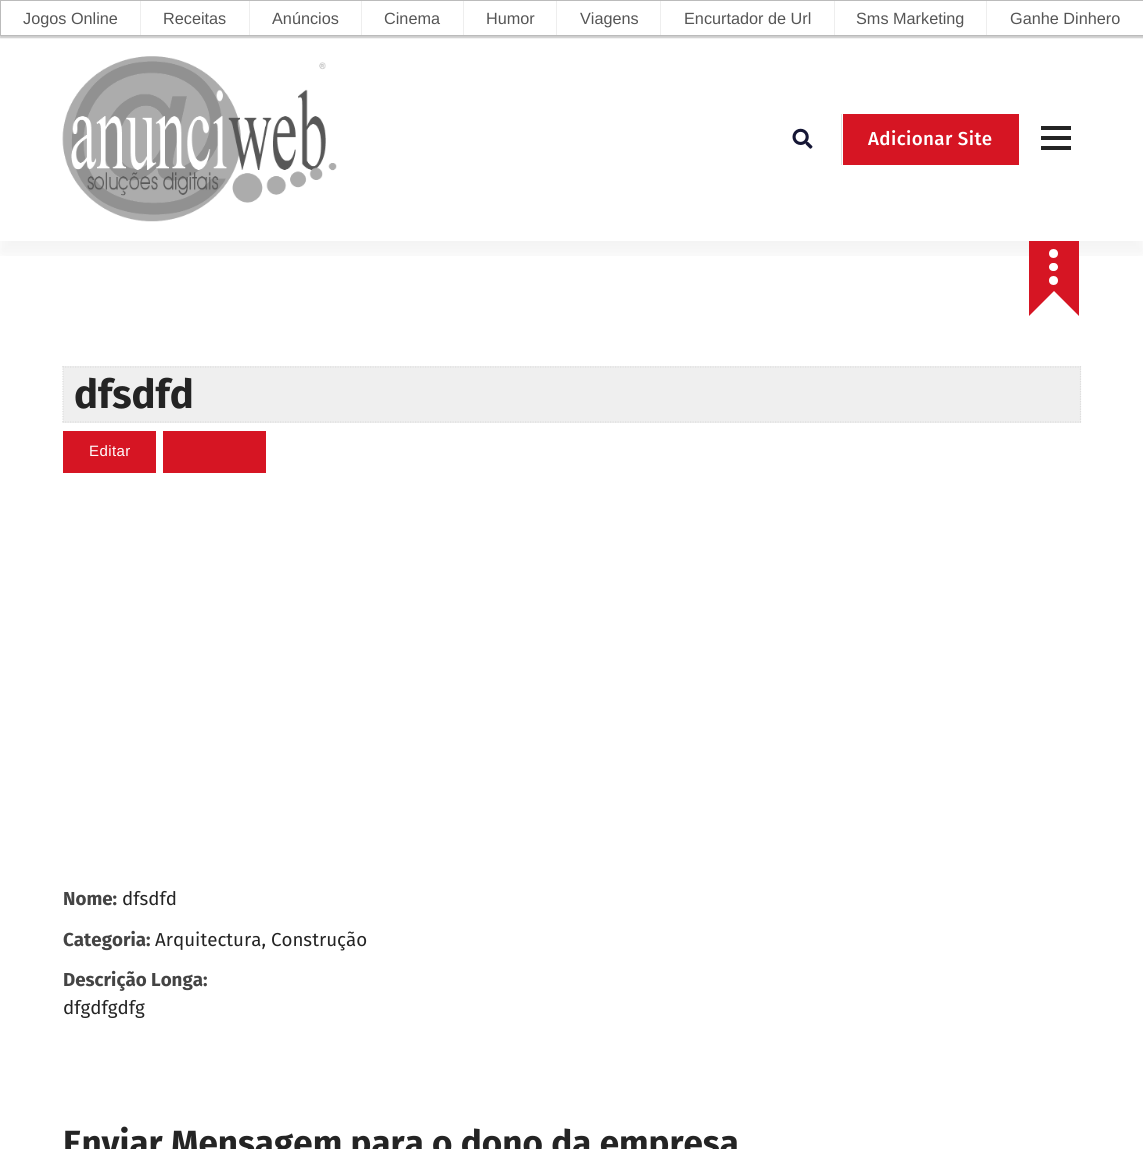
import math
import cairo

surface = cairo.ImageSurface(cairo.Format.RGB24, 1143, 1149)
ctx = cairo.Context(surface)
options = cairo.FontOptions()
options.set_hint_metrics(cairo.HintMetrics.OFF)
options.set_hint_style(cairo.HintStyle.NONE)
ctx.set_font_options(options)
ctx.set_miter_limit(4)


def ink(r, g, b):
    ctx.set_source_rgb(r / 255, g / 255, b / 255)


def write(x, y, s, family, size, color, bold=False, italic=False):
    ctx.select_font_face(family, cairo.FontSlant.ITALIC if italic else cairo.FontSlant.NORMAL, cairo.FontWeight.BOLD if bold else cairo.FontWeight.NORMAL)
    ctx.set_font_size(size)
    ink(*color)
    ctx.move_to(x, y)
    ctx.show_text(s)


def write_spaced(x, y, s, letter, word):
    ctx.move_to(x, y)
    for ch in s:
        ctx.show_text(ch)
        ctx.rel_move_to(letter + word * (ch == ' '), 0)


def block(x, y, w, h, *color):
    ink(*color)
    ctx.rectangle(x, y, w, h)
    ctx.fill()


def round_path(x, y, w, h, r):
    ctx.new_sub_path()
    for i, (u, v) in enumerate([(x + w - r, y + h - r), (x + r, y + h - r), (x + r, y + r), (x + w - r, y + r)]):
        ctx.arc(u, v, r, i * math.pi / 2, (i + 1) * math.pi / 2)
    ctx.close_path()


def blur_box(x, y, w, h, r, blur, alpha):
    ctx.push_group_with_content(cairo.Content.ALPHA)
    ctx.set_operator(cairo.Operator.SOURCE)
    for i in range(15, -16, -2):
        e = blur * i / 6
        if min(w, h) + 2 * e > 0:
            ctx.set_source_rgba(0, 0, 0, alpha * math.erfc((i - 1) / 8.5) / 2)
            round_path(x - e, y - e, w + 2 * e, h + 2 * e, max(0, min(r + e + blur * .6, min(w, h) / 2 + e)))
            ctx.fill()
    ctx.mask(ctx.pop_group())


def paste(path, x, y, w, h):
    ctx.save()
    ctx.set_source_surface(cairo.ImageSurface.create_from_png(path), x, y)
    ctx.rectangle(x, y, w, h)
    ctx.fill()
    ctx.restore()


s1 = dict(family="Liberation Sans", size=16.25, color=(85, 85, 85))
s2 = dict(family="Fira Sans", size=40, color=(36, 36, 36), bold=True)
s3 = dict(family="Fira Sans", size=18.75, color=(68, 68, 68), bold=True)
s4 = dict(family="Fira Sans", size=18.75, color=(36, 36, 36))
s5 = dict(family="Fira Sans", size=35, color=(36, 36, 36), bold=True)

ink(255, 255, 255)
ctx.paint()
ctx.save()
ctx.rectangle(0, 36, 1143, 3)
ctx.clip()
ink(0, 0, 0)
blur_box(0, 1, 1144, 37, 0, 0.5, 0.2)
ctx.restore()
ctx.save()
ctx.rectangle(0, 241, 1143, 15)
ctx.clip()
ink(0, 0, 0)
blur_box(0, 49, 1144, 205, 0, 9.5, 0.05)
ctx.restore()
ctx.rectangle(0.5, 0.5, 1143, 35)
ink(187, 187, 187)
ctx.set_line_width(1)
ctx.stroke()
write(23, 24, "Jogos Online", **s1)
block(140, 1, 1, 34, 238, 238, 238)
write(163, 24, "Receitas", **s1)
block(249, 1, 1, 34, 238, 238, 238)
write(272, 24, "Anúncios", **s1)
block(361, 1, 1, 34, 238, 238, 238)
write(384, 24, "Cinema", **s1)
block(463, 1, 1, 34, 238, 238, 238)
write(486, 24, "Humor", **s1)
block(556, 1, 1, 34, 238, 238, 238)
write(580, 24, "Viagens", **s1)
block(660, 1, 1, 34, 238, 238, 238)
write(684, 24, "Encurtador de Url", **s1)
block(834, 1, 1, 34, 238, 238, 238)
write(856, 24, "Sms Marketing", **s1)
block(986, 1, 1, 34, 238, 238, 238)
write(1010, 24, "Ganhe Dinhero", **s1)
paste("pic1.png", 62, 56, 275, 166)
paste("pic2.png", 792, 128, 21, 21)
block(841, 114, 1, 51, 225, 225, 225)
block(843, 114, 176, 51, 214, 21, 35)
ctx.select_font_face("Fira Sans Medium")
ctx.set_font_size(18.75)
ink(255, 255, 255)
write_spaced(868, 145, "Adicionar Site", 0.4, 0)
block(1041, 126, 30, 4, 36, 36, 36)
block(1041, 136, 30, 4, 36, 36, 36)
block(1041, 146, 30, 4, 36, 36, 36)
block(1029, 241, 50, 50, 214, 21, 35)
ctx.new_path()
ctx.move_to(1079, 266)
ctx.line_to(1079, 316)
ctx.line_to(1054, 291)
ctx.close_path()
ctx.move_to(1029, 316)
ctx.line_to(1029, 266)
ctx.line_to(1054, 291)
ctx.close_path()
ctx.fill()
ink(255, 255, 255)
round_path(1049, 263, 9, 8, 4)
ctx.fill()
ctx.arc(1053.5, 253.5, 4.5, 0, 2 * math.pi)
ctx.fill()
ctx.arc(1053.5, 280.5, 4.5, 0, 2 * math.pi)
ctx.fill()
block(63, 366, 1018, 57, 239, 239, 239)
ctx.new_path()
ctx.move_to(62.5, 367)
ctx.line_to(1081, 367)
ink(221, 221, 221)
ctx.set_line_width(1.2)
ctx.set_dash([1.25, 1.25])
ctx.stroke()
ctx.new_path()
ctx.move_to(1080.5, 366)
ctx.line_to(1080.5, 422.5)
ctx.stroke()
ctx.new_path()
ctx.move_to(62.5, 422)
ctx.line_to(1081, 422)
ctx.stroke()
ctx.new_path()
ctx.move_to(63, 366)
ctx.line_to(63, 422.5)
ctx.stroke()
write(74, 408, "dfsdfd", **s2)
block(63, 431, 93, 42, 214, 21, 35)
ctx.select_font_face("Liberation Sans")
ctx.set_font_size(15)
ink(255, 255, 255)
write_spaced(89, 456, "Editar", 0.4, 0)
block(163, 431, 103, 42, 214, 21, 35)
write(63, 905, "Nome:", **s3)
write(122, 905, "dfsdfd", **s4)
write(63, 946, "Categoria:", **s3)
write(155, 946, "Arquitectura, Construção", **s4)
write(63, 986, "Descrição Longa:", **s3)
write(63, 1014, "dfgdfgdfg", **s4)
write(63, 1155, "Enviar Mensagem para o dono da empresa", **s5)
surface.write_to_png("screenshot.png")
